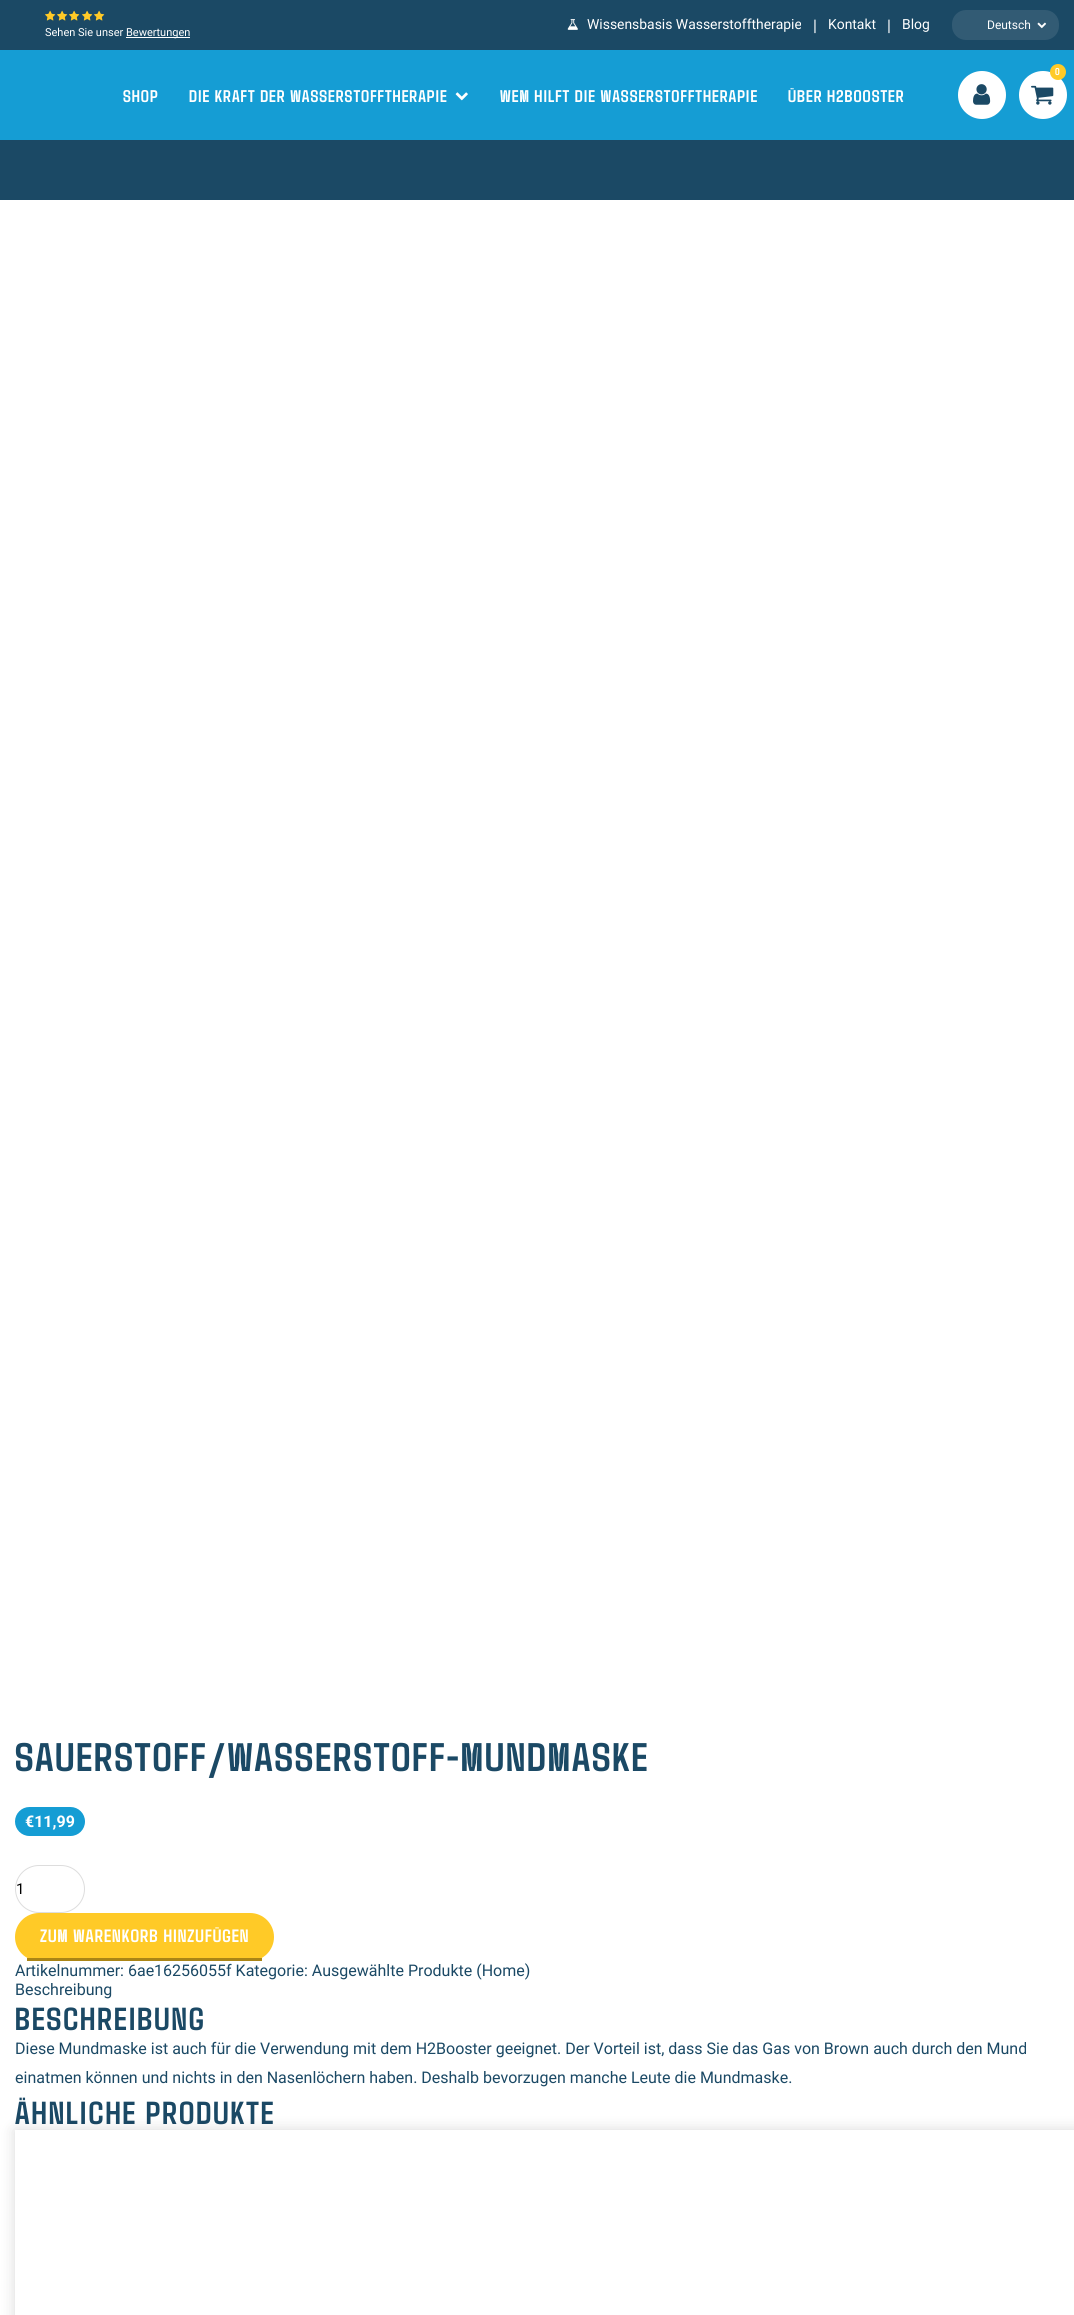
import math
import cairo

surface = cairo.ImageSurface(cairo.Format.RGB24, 1074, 2315)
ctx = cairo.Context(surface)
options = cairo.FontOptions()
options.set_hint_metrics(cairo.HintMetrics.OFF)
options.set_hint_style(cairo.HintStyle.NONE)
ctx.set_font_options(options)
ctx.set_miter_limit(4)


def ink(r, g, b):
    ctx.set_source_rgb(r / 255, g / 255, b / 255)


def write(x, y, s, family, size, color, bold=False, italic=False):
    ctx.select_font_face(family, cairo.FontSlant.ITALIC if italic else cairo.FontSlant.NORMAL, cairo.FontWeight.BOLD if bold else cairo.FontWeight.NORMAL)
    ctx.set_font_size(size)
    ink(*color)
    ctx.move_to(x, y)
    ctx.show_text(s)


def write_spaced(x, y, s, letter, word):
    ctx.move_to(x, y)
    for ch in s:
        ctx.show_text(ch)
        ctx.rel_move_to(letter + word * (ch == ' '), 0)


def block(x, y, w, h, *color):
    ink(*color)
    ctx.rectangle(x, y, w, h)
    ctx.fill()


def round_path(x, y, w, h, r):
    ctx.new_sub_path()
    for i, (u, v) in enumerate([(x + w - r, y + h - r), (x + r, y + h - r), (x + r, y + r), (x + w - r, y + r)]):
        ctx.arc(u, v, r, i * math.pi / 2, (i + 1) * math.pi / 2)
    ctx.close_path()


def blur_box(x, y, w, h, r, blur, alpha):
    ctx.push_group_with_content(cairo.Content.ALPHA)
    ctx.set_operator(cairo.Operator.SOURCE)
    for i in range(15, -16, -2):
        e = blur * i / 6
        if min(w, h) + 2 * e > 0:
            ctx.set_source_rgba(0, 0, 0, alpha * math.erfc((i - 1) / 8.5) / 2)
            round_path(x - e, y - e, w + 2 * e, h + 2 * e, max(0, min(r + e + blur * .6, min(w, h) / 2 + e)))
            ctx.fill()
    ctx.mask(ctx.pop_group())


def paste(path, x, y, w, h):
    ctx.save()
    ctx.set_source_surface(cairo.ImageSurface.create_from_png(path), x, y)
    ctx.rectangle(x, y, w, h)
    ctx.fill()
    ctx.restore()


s1 = dict(family="Roboto", size=11, color=(255, 255, 255))
s2 = dict(family="Roboto", size=13.9, color=(255, 255, 255))
s3 = dict(family="Roboto", size=16, color=(255, 255, 255))
s4 = dict(family="Roboto", size=12, color=(255, 255, 255))
s5 = dict(family="Roboto", size=16, color=(255, 255, 255), bold=True)
s6 = dict(family="Roboto", size=15, color=(0, 0, 0))
s7 = dict(family="Roboto", size=16, color=(27, 73, 101))

ink(255, 255, 255)
ctx.paint()
block(0, 0, 1074, 200, 27, 73, 101)
paste("pic1.png", 45, 10, 11, 11)
paste("pic1.png", 57, 10, 11, 11)
paste("pic1.png", 69, 10, 11, 11)
paste("pic1.png", 82, 10, 11, 11)
paste("pic1.png", 94, 10, 11, 11)
write(45, 36, "Sehen Sie unser", **s1)
block(126, 37, 64, 1, 255, 255, 255)
write(126, 36, "Bewertungen", **s1)
paste("pic2.png", 567, 19, 11, 11)
write(587, 29, "Wissensbasis Wasserstofftherapie", **s2)
write(813, 31, "|", **s3)
write(828, 29, "Kontakt", **s2)
write(887, 31, "|", **s3)
write(902, 29, "Blog", **s2)
ink(50, 91, 116)
round_path(952, 10, 107, 30, 14)
ctx.fill()
write(987, 29, "Deutsch", **s4)
paste("pic3.png", 1037, 22, 10, 7)
block(0, 50, 1074, 90, 21, 157, 212)
ink(255, 255, 255)
ctx.arc(982, 95, 24, 0, 2 * math.pi)
ctx.fill()
paste("pic4.png", 973, 84, 18, 21)
ctx.arc(1043, 95, 24, 0, 2 * math.pi)
ctx.fill()
ink(255, 202, 39)
ctx.arc(1058, 72, 8, 0, 2 * math.pi)
ctx.fill()
ctx.select_font_face("Agdasima", cairo.FontSlant.NORMAL, cairo.FontWeight.BOLD)
ctx.set_font_size(10)
ink(255, 255, 255)
write_spaced(1055, 75, "0", 1, 0)
paste("pic5.png", 1031, 85, 23, 20)
ctx.set_font_size(17)
write_spaced(123, 102, "SHOP", 1, 0)
write_spaced(189, 102, "DIE KRAFT DER WASSERSTOFFTHERAPIE", 1, 0)
paste("pic6.png", 455, 92, 13, 9)
write_spaced(500, 102, "WEM HILFT DIE WASSERSTOFFTHERAPIE", 1, 0)
write_spaced(788, 102, "ÜBER H2BOOSTER", 1, 0)
ctx.set_font_size(40)
ink(27, 73, 101)
write_spaced(15, 1771, "SAUERSTOFF/WASSERSTOFF-MUNDMASKE", 2, 0)
ink(21, 157, 212)
round_path(15, 1807, 70, 29, 14.5)
ctx.fill()
write(25, 1827, "€11,99", **s5)
round_path(15.5, 1865.5, 69, 47, 23.5)
ink(221, 221, 221)
ctx.set_line_width(1)
ctx.stroke()
write(16, 1894, "1", **s6)
ink(255, 202, 39)
round_path(15, 1913, 259, 48, 24)
ctx.fill()
block(27, 1958, 235, 3, 171, 134, 22)
ctx.select_font_face("Agdasima", cairo.FontSlant.NORMAL, cairo.FontWeight.BOLD)
ctx.set_font_size(18)
ink(255, 255, 255)
write_spaced(40, 1942, "ZUM WARENKORB HINZUFÜGEN", 1, 0)
write(15, 1976, "Artikelnummer: 6ae16256055f Kategorie: Ausgewählte Produkte (Home)", **s7)
write(15, 1995, "Beschreibung", **s7)
ctx.select_font_face("Agdasima", cairo.FontSlant.NORMAL, cairo.FontWeight.BOLD)
ctx.set_font_size(32)
write_spaced(15, 2030, "BESCHREIBUNG", 2, 0)
write(15, 2054, "Diese Mundmaske ist auch für die Verwendung mit dem H2Booster geeignet. Der Vorteil ist, dass Sie das Gas von Brown auch durch den Mund", **s7)
write(15, 2083, "einatmen können und nichts in den Nasenlöchern haben. Deshalb bevorzugen manche Leute die Mundmaske.", **s7)
ctx.select_font_face("Agdasima", cairo.FontSlant.NORMAL, cairo.FontWeight.BOLD)
ctx.set_font_size(32)
write_spaced(15, 2124, "ÄHNLICHE PRODUKTE", 2, 0)
ctx.save()
ctx.set_fill_rule(cairo.FillRule.EVEN_ODD)
ctx.new_path()
ctx.move_to(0, 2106)
ctx.line_to(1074, 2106)
ctx.line_to(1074, 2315)
ctx.line_to(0, 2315)
ctx.close_path()
ctx.move_to(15, 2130)
ctx.line_to(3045, 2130)
ctx.line_to(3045, 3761)
ctx.line_to(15, 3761)
ctx.close_path()
ctx.clip()
ink(0, 0, 0)
blur_box(15, 2130, 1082, 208, 0, 7.5, 0.15)
ctx.restore()
surface.write_to_png("screenshot.png")
